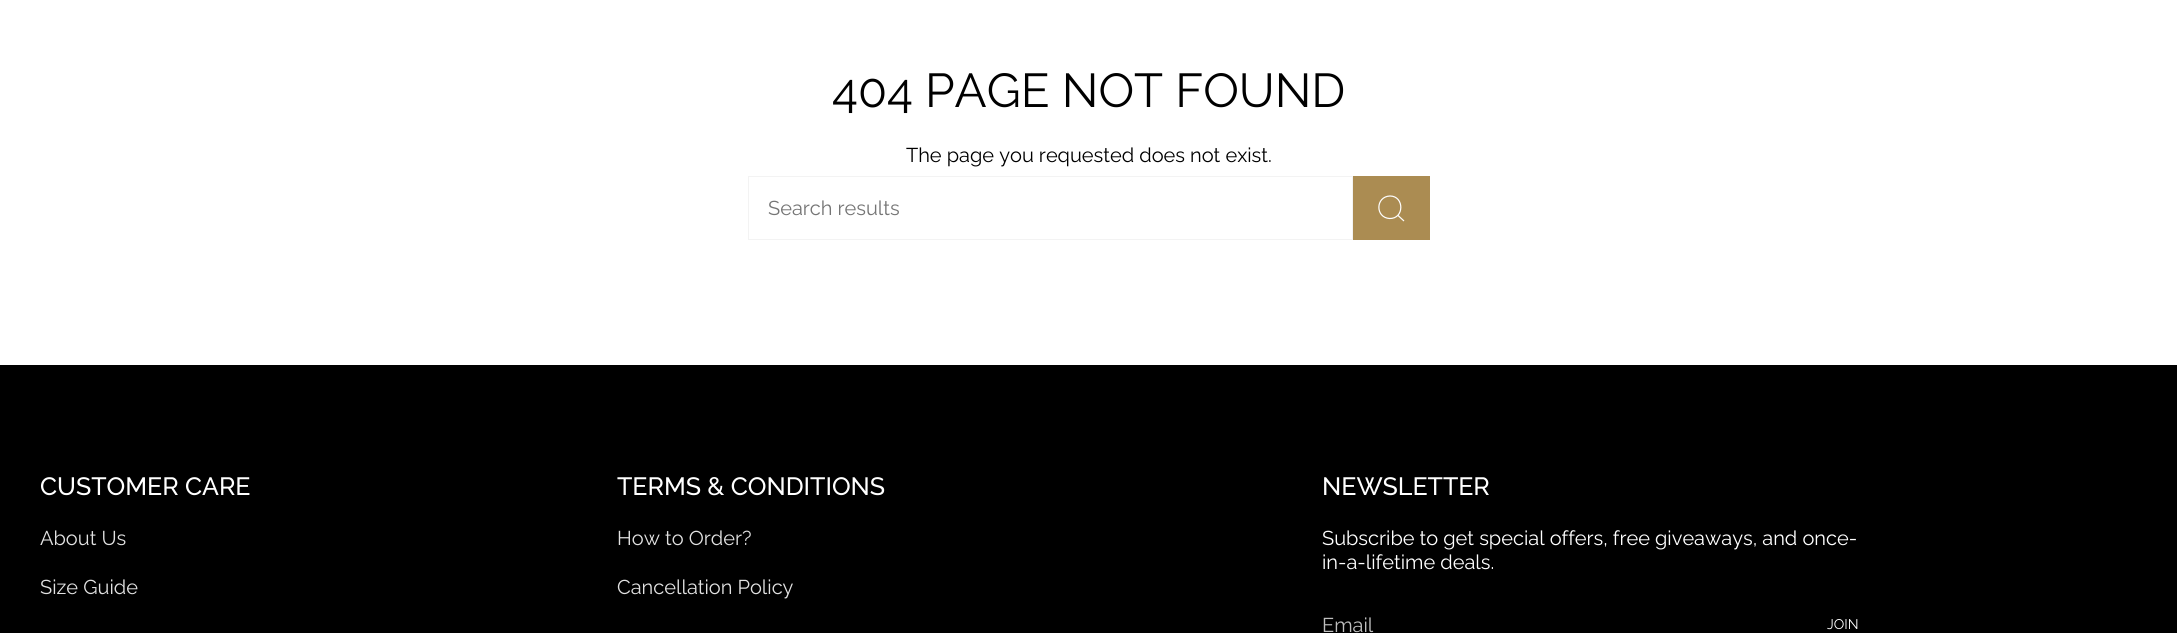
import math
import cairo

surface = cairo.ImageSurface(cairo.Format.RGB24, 2177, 633)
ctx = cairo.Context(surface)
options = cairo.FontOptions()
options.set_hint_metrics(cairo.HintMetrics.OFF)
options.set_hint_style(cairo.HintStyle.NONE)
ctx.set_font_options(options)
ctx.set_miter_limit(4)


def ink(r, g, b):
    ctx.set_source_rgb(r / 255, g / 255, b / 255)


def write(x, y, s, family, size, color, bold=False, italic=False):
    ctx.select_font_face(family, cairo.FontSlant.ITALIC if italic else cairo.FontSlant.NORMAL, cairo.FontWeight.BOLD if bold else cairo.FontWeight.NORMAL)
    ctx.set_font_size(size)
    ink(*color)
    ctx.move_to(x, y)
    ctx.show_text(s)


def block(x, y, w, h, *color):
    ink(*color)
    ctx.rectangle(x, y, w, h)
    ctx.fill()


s1 = dict(family="Raleway", size=47.5, color=(0, 0, 0))
s2 = dict(family="Raleway", size=20, color=(0, 0, 0))
s3 = dict(family="Raleway", size=20, color=(117, 117, 117))
s4 = dict(family="Raleway Medium", size=25, color=(255, 255, 255))
s5 = dict(family="Raleway", size=20, color=(225, 225, 225))
s6 = dict(family="Raleway", size=20, color=(255, 255, 255))
s7 = dict(family="Raleway", size=20, color=(191, 191, 191))
s8 = dict(family="Raleway", size=14, color=(255, 255, 255))

ink(255, 255, 255)
ctx.paint()
write(832, 107, "404 PAGE NOT FOUND", **s1)
write(906, 162, "The page you requested does not exist.", **s2)
ctx.rectangle(748.5, 176.5, 604, 63)
ink(243, 243, 243)
ctx.set_line_width(1)
ctx.stroke()
write(768, 215, "Search results", **s3)
block(1353, 176, 77, 64, 171, 140, 82)
ctx.new_path()
ctx.move_to(1390, 196)
ctx.curve_to(1404.5, 196, 1404.5, 219, 1389.5, 218.5)
ctx.curve_to(1375, 217.5, 1375.5, 196.5, 1390, 196)
ctx.close_path()
ctx.move_to(1397.5, 215)
ctx.line_to(1404, 221)
ink(255, 255, 255)
ctx.set_line_width(1.2)
ctx.stroke()
block(0, 365, 2177, 268, 0, 0, 0)
write(40, 495, "CUSTOMER CARE", **s4)
write(40, 545, "About Us", **s5)
write(40, 594, "Size Guide", **s5)
write(617, 495, "TERMS & CONDITIONS", **s4)
write(617, 545, "How to Order?", **s5)
write(617, 594, "Cancellation Policy", **s5)
write(1322, 495, "NEWSLETTER", **s4)
write(1322, 545, "Subscribe to get special offers, free giveaways, and once-", **s6)
write(1322, 569, "in-a-lifetime deals.", **s6)
write(1322, 632, "Email", **s7)
write(1827, 629, "JOIN", **s8)
surface.write_to_png("screenshot.png")
